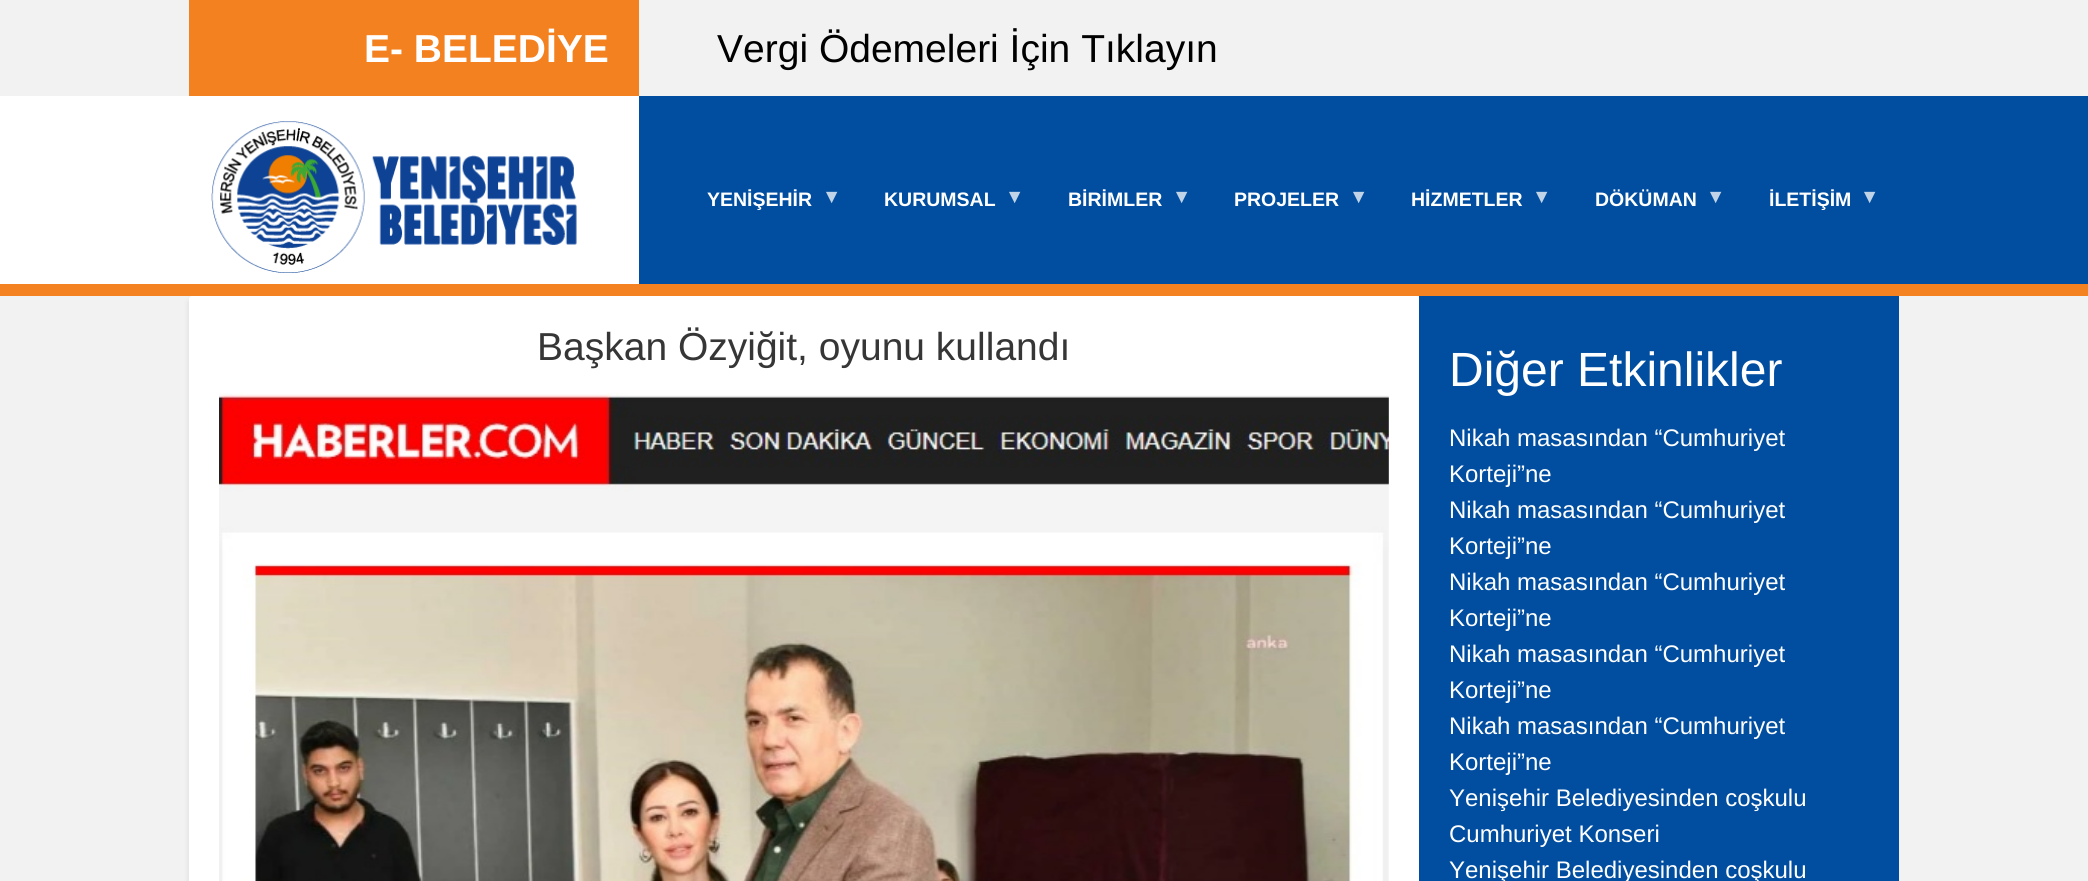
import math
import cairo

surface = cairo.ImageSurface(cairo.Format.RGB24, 2088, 881)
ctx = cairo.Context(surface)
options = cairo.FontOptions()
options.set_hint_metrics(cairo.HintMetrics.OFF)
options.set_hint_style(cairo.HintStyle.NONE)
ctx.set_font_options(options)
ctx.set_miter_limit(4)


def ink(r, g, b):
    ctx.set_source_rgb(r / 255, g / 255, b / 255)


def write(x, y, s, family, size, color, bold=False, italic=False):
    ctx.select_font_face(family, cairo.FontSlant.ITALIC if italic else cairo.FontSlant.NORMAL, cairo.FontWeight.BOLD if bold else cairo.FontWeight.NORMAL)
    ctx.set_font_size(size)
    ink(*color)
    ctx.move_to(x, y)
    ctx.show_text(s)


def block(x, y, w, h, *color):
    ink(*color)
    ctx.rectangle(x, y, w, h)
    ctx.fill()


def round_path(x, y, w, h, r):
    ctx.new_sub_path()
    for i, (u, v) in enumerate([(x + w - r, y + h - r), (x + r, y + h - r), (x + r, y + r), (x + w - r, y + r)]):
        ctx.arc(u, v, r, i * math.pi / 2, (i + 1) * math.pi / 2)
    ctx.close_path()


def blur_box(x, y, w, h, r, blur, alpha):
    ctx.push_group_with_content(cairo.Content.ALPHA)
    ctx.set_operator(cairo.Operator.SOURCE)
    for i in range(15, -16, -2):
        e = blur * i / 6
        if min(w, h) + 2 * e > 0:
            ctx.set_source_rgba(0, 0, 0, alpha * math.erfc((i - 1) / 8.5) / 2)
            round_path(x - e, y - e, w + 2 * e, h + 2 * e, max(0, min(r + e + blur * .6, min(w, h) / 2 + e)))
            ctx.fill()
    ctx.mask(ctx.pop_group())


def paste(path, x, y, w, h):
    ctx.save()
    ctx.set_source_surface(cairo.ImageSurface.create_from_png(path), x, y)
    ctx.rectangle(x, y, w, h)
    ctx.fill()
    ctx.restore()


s1 = dict(family="Liberation Sans", size=39, color=(255, 255, 255), bold=True)
s2 = dict(family="Liberation Sans", size=39, color=(0, 0, 0))
s3 = dict(family="Liberation Sans", size=19.5, color=(255, 255, 255), bold=True)
s4 = dict(family="Liberation Sans", size=19.5, color=(192, 211, 231), bold=True)
s5 = dict(family="Liberation Sans", size=39, color=(54, 54, 54))
s6 = dict(family="Liberation Sans", size=48, color=(255, 255, 255))
s7 = dict(family="Liberation Sans", size=24, color=(255, 255, 255))

ink(242, 242, 242)
ctx.paint()
block(189, 0, 450, 96, 243, 129, 32)
write(364, 62, "E- BELEDİYE", **s1)
write(717, 62, "Vergi Ödemeleri İçin Tıklayın", **s2)
gradient = cairo.LinearGradient(0, 190, 2088, 190)
gradient.add_color_stop_rgba(0, 1, 1, 1, 1)
gradient.add_color_stop_rgba(0.48, 1, 1, 1, 1)
gradient.add_color_stop_rgba(0.49, 0.004, 0.306, 0.627, 1)
ctx.set_source(gradient)
ctx.rectangle(0, 96, 2088, 188)
ctx.fill()
paste("pic1.png", 211, 121, 366, 152)
block(639, 96, 384, 188, 1, 78, 160)
write(707, 206, "YENİŞEHİR", **s3)
write(822, 203, "▼", **s4)
write(884, 206, "KURUMSAL", **s3)
write(1005, 203, "▼", **s4)
write(1068, 206, "BİRİMLER", **s3)
write(1172, 203, "▼", **s4)
write(1234, 206, "PROJELER", **s3)
write(1349, 203, "▼", **s4)
write(1411, 206, "HİZMETLER", **s3)
write(1532, 203, "▼", **s4)
write(1595, 206, "DÖKÜMAN", **s3)
write(1706, 203, "▼", **s4)
write(1769, 206, "İLETİŞİM", **s3)
write(1860, 203, "▼", **s4)
ink(0, 0, 0)
blur_box(189, 300, 1230, 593, 3, 3, 0.1)
block(0, 284, 2088, 12, 244, 130, 33)
ink(255, 255, 255)
round_path(189, 296, 1230, 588, 3)
ctx.fill()
write(537, 360, "Başkan Özyiğit, oyunu kullandı", **s5)
paste("pic2.png", 219, 393, 1170, 488)
block(1419, 296, 480, 585, 1, 78, 160)
write(1449, 386, "Diğer Etkinlikler", **s6)
write(1449, 446, "Nikah masasından “Cumhuriyet", **s7)
write(1449, 482, "Korteji”ne", **s7)
write(1449, 518, "Nikah masasından “Cumhuriyet", **s7)
write(1449, 554, "Korteji”ne", **s7)
write(1449, 590, "Nikah masasından “Cumhuriyet", **s7)
write(1449, 626, "Korteji”ne", **s7)
write(1449, 662, "Nikah masasından “Cumhuriyet", **s7)
write(1449, 698, "Korteji”ne", **s7)
write(1449, 734, "Nikah masasından “Cumhuriyet", **s7)
write(1449, 770, "Korteji”ne", **s7)
write(1449, 806, "Yenişehir Belediyesinden coşkulu", **s7)
write(1449, 842, "Cumhuriyet Konseri", **s7)
write(1449, 878, "Yenişehir Belediyesinden coşkulu", **s7)
surface.write_to_png("screenshot.png")
